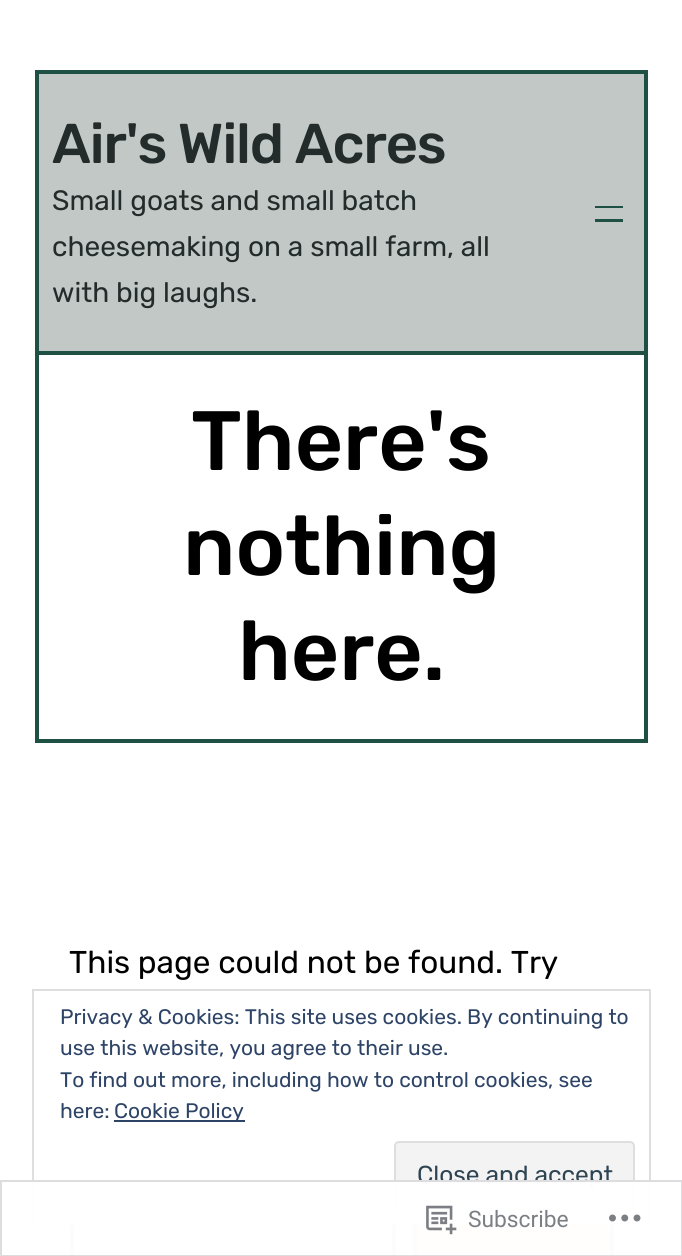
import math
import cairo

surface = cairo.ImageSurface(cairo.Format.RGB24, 682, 1256)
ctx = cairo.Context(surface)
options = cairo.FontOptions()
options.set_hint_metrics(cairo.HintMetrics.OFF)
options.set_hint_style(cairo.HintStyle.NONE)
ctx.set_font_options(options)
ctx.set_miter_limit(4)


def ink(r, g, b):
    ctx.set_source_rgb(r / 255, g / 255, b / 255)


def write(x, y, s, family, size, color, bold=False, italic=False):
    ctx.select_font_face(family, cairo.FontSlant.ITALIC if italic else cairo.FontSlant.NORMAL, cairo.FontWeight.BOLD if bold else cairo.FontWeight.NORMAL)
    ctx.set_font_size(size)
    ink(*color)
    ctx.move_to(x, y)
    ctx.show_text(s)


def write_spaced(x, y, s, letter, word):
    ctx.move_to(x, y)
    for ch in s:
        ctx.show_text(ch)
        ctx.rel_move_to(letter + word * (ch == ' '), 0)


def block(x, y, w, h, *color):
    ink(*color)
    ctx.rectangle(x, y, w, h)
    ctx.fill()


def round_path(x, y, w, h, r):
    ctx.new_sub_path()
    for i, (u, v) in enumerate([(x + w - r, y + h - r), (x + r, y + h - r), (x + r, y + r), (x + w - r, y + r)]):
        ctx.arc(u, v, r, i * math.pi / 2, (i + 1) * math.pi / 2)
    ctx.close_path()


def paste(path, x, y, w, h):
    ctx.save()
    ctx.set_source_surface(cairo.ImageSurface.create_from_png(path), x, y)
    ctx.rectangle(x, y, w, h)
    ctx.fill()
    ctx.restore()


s1 = dict(family="Rubik", size=28, color=(35, 43, 43))
s2 = dict(family="Rubik Medium", size=84, color=(0, 0, 0))
s3 = dict(family="Rubik", size=31.5, color=(0, 0, 0))
s4 = dict(family="Rubik", size=21, color=(46, 68, 103))
s5 = dict(family="Rubik", size=24.5, color=(46, 68, 83))
s6 = dict(family="Roboto", size=22.75, color=(123, 127, 132))

ink(255, 255, 255)
ctx.paint()
ink(193, 200, 197)
ctx.rectangle(37, 72, 609, 281)
ctx.fill_preserve()
ink(30, 80, 68)
ctx.set_line_width(4)
ctx.stroke()
ctx.select_font_face("Rubik Medium")
ctx.set_font_size(56)
ink(35, 43, 43)
write_spaced(52, 163, "Air's Wild Acres", -1.1, 0)
write(52, 210, "Small goats and small batch", **s1)
write(52, 256, "cheesemaking on a small farm, all", **s1)
write(52, 302, "with big laughs.", **s1)
block(595, 206, 28, 2, 30, 80, 68)
block(595, 219, 28, 3, 30, 80, 68)
block(644, 355, 4, 387, 30, 80, 68)
block(35, 739, 613, 4, 30, 80, 68)
block(35, 355, 4, 387, 30, 80, 68)
write(191, 470, "There's", **s2)
write(183, 575, "nothing", **s2)
write(238, 680, "here.", **s2)
write(69, 973, "This page could not be found. Try", **s3)
ctx.rectangle(72, 1166, 322, 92)
ink(30, 80, 68)
ctx.stroke()
block(417, 1225, 193, 31, 255, 219, 97)
ctx.rectangle(415, 1166, 197, 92)
ink(30, 80, 68)
ctx.stroke()
block(70, 1164, 544, 59, 255, 255, 255)
ctx.rectangle(33, 990, 617, 234)
ink(222, 222, 222)
ctx.set_line_width(2)
ctx.stroke()
write(60, 1024, "Privacy & Cookies: This site uses cookies. By continuing to", **s4)
write(60, 1055, "use this website, you agree to their use.", **s4)
write(60, 1087, "To find out more, including how to control cookies, see", **s4)
write(60, 1118, "here:", **s4)
block(114, 1120, 131, 2, 46, 68, 103)
write(114, 1118, "Cookie Policy", **s4)
ink(243, 243, 243)
round_path(395, 1142, 239, 66, 4)
ctx.fill_preserve()
ink(222, 222, 222)
ctx.stroke()
write(417, 1183, "Close and accept", **s5)
ctx.set_source_rgba(1, 1, 1, 0.98)
ctx.rectangle(32, 1180, 619, 76)
ctx.fill()
ctx.rectangle(1, 1181, 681, 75)
ctx.set_source_rgba(0.863, 0.863, 0.871, 0.98)
ctx.stroke()
paste("pic1.png", 426, 1205, 31, 30)
write(468, 1227, "Subscribe", **s6)
paste("pic2.png", 609, 1214, 32, 8)
surface.write_to_png("screenshot.png")
